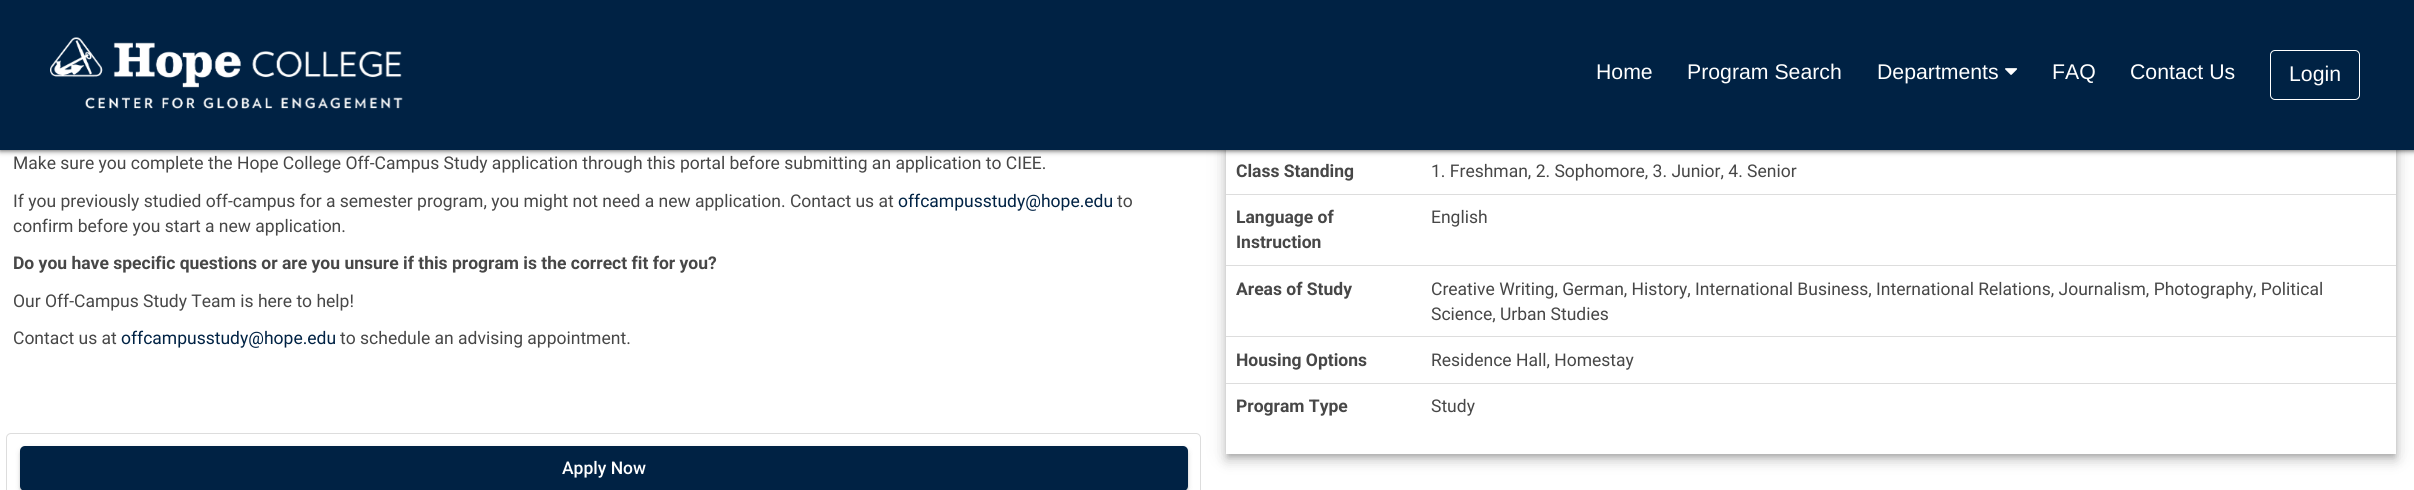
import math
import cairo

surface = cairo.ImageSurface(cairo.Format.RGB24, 2414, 490)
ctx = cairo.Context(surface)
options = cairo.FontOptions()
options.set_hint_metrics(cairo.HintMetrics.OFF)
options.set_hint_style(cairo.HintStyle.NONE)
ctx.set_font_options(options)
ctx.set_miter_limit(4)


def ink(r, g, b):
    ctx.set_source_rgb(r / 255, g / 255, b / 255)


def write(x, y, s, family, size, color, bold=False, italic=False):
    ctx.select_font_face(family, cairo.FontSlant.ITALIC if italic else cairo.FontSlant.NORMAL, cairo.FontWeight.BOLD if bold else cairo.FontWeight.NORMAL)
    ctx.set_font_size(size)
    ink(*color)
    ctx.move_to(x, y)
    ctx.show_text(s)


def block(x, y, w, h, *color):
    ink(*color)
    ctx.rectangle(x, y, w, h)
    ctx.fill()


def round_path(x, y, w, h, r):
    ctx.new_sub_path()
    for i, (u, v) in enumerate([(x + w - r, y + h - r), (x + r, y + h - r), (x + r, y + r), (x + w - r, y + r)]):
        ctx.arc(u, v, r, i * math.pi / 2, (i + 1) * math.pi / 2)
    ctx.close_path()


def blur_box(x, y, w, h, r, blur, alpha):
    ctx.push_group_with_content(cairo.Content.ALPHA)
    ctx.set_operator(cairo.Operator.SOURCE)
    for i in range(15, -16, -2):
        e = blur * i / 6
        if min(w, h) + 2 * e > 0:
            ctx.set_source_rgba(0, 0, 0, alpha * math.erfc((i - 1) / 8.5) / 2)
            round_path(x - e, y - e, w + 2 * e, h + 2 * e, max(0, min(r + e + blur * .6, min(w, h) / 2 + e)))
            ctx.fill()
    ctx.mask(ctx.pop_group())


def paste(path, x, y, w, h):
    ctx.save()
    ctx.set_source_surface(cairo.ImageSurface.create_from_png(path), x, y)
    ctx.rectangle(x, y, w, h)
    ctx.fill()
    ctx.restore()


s1 = dict(family="Liberation Sans", size=21.25, color=(255, 255, 255))
s2 = dict(family="Roboto", size=17.5, color=(71, 71, 71))
s3 = dict(family="Roboto", size=17.5, color=(0, 34, 68))
s4 = dict(family="Roboto", size=17.5, color=(71, 71, 71), bold=True)
s5 = dict(family="Roboto Medium", size=17.5, color=(255, 255, 255))

ink(255, 255, 255)
ctx.paint()
ink(0, 0, 0)
blur_box(0, 0, 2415, 150, 0, 3, 0.8)
ctx.save()
ctx.set_fill_rule(cairo.FillRule.EVEN_ODD)
ctx.new_path()
ctx.move_to(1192, 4)
ctx.line_to(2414, 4)
ctx.line_to(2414, 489)
ctx.line_to(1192, 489)
ctx.close_path()
ctx.move_to(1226, 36)
ctx.line_to(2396, 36)
ctx.line_to(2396, 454)
ctx.line_to(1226, 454)
ctx.close_path()
ctx.clip()
blur_box(1226, 38, 1170, 417, 0, 11, 0.12)
ctx.restore()
ctx.save()
ctx.set_fill_rule(cairo.FillRule.EVEN_ODD)
ctx.new_path()
ctx.move_to(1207, 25)
ctx.line_to(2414, 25)
ctx.line_to(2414, 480)
ctx.line_to(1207, 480)
ctx.close_path()
ctx.move_to(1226, 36)
ctx.line_to(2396, 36)
ctx.line_to(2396, 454)
ctx.line_to(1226, 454)
ctx.close_path()
ctx.clip()
blur_box(1226, 44, 1170, 417, 0, 6, 0.14)
ctx.restore()
ctx.save()
ctx.set_fill_rule(cairo.FillRule.EVEN_ODD)
ctx.new_path()
ctx.move_to(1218, 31)
ctx.line_to(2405, 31)
ctx.line_to(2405, 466)
ctx.line_to(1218, 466)
ctx.close_path()
ctx.move_to(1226, 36)
ctx.line_to(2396, 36)
ctx.line_to(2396, 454)
ctx.line_to(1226, 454)
ctx.close_path()
ctx.clip()
blur_box(1228, 41, 1167, 415, 0, 3, 0.2)
ctx.restore()
block(0, 0, 2414, 150, 0, 34, 68)
paste("pic1.png", 50, 37, 353, 72)
write(1596, 79, "Home", **s1)
write(1687, 79, "Program Search", **s1)
write(1877, 79, "Departments", **s1)
paste("pic2.png", 2005, 68, 13, 7)
write(2052, 79, "FAQ", **s1)
write(2130, 79, "Contact Us", **s1)
round_path(2270.5, 50.5, 89, 49, 4.5)
ctx.set_line_width(1)
ctx.stroke()
write(2289, 81, "Login", **s1)
write(13, 169, "Make sure you complete the Hope College Off-Campus Study application through this portal before submitting an application to CIEE.", **s2)
write(13, 207, "If you previously studied off-campus for a semester program, you might not need a new application. Contact us at", **s2)
write(898, 207, "offcampusstudy@hope.edu", **s3)
write(1117, 207, "to", **s2)
write(13, 232, "confirm before you start a new application.", **s2)
write(13, 269, "Do you have specific questions or are you unsure if this program is the correct fit for you?", **s4)
write(13, 307, "Our Off-Campus Study Team is here to help!", **s2)
write(13, 344, "Contact us at", **s2)
write(121, 344, "offcampusstudy@hope.edu", **s3)
write(340, 344, "to schedule an advising appointment.", **s2)
write(1236, 177, "Class Standing", **s4)
write(1431, 177, "1. Freshman, 2. Sophomore, 3. Junior, 4. Senior", **s2)
write(1236, 223, "Language of", **s4)
write(1236, 248, "Instruction", **s4)
block(1226, 194, 1170, 1, 221, 221, 221)
write(1431, 223, "English", **s2)
write(1236, 295, "Areas of Study", **s4)
block(1226, 265, 1170, 1, 221, 221, 221)
write(1431, 295, "Creative Writing, German, History, International Business, International Relations, Journalism, Photography, Political", **s2)
write(1431, 320, "Science, Urban Studies", **s2)
write(1236, 366, "Housing Options", **s4)
block(1226, 336, 1170, 1, 221, 221, 221)
write(1431, 366, "Residence Hall, Homestay", **s2)
write(1236, 412, "Program Type", **s4)
block(1226, 383, 1170, 1, 221, 221, 221)
write(1431, 412, "Study", **s2)
ctx.new_path()
ctx.move_to(11, 433.5)
ctx.line_to(1196, 433.5)
ctx.curve_to(1198.5, 433.5, 1200.5, 435.5, 1200.5, 438)
ctx.line_to(1200.5, 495.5)
ctx.line_to(6.5, 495.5)
ctx.line_to(6.5, 438)
ctx.curve_to(6.5, 435.5, 8.5, 433.5, 11, 433.5)
ctx.close_path()
ink(221, 221, 221)
ctx.stroke()
ink(0, 0, 0)
blur_box(20, 448, 1168, 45, 5, 3, 0.12)
blur_box(20, 449, 1168, 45, 5, 1, 0.14)
ink(0, 34, 68)
round_path(20, 446, 1168, 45, 5)
ctx.fill()
write(562, 474, "Apply Now", **s5)
surface.write_to_png("screenshot.png")
